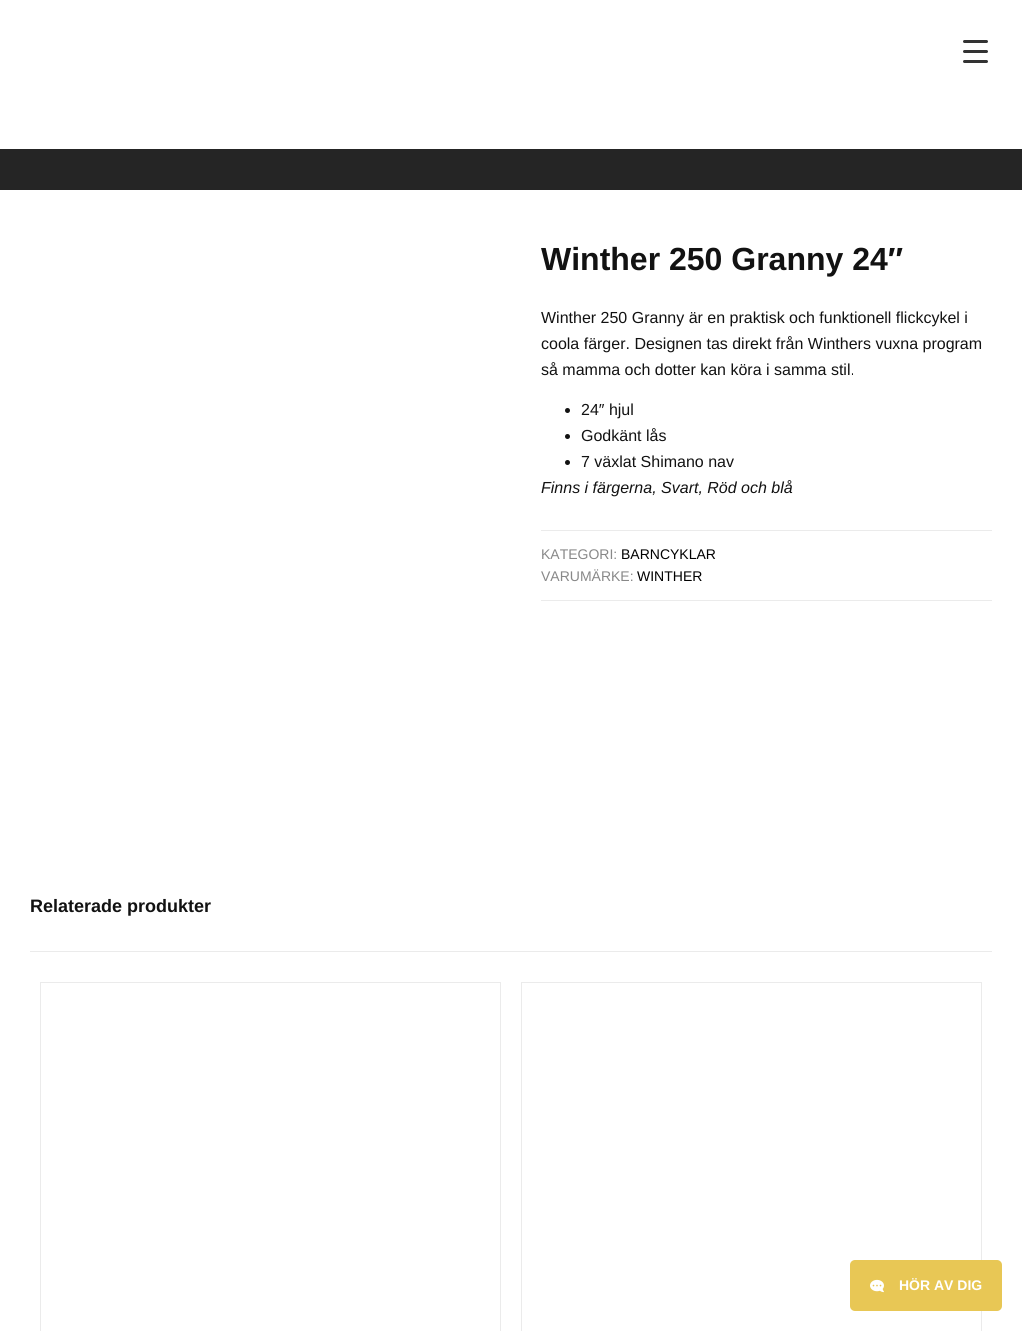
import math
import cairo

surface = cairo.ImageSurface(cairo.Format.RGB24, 1022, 1331)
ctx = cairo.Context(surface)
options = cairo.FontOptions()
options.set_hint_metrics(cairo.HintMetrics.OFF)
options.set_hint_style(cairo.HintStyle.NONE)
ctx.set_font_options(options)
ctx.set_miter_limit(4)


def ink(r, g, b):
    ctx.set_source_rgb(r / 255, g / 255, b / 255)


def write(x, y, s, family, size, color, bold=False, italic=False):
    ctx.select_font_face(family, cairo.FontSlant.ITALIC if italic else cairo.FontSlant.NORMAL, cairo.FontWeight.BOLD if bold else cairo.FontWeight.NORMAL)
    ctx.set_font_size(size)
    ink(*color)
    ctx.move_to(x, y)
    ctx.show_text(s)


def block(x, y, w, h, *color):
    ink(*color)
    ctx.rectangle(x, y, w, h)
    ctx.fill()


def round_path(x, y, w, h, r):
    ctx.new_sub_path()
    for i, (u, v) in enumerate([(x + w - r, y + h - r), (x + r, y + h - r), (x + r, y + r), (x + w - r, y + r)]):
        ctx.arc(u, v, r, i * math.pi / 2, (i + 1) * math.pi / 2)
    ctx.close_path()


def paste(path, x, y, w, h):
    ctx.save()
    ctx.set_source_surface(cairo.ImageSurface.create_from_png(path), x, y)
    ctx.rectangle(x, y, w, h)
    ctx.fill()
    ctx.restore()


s1 = dict(family="Liberation Sans", size=32, color=(18, 18, 18), bold=True)
s2 = dict(family="Liberation Sans", size=16, color=(18, 18, 18))
s3 = dict(family="Liberation Sans", size=16, color=(18, 18, 18), italic=True)
s4 = dict(family="Liberation Sans", size=14, color=(136, 136, 136))
s5 = dict(family="Liberation Sans", size=14, color=(0, 0, 0))
s6 = dict(family="Liberation Sans", size=18, color=(18, 18, 18), bold=True)
s7 = dict(family="Liberation Sans", size=14, color=(255, 255, 255), bold=True)

ink(255, 255, 255)
ctx.paint()
ink(51, 51, 51)
round_path(963, 50, 25, 3, 1.5)
ctx.fill()
round_path(963, 40, 25, 3, 1.5)
ctx.fill()
round_path(963, 60, 25, 3, 1.5)
ctx.fill()
block(0, 149, 1022, 41, 37, 37, 37)
write(541, 270, "Winther 250 Granny 24″", **s1)
write(541, 323, "Winther 250 Granny är en praktisk och funktionell flickcykel i", **s2)
write(541, 349, "coola färger. Designen tas direkt från Winthers vuxna program", **s2)
write(541, 375, "så mamma och dotter kan köra i samma stil.", **s2)
ctx.new_path()
ctx.arc(567.5, 410.5, 2.5, 0, 2 * math.pi)
ctx.fill()
write(581, 415, "24″ hjul", **s2)
ctx.new_path()
ctx.arc(567.5, 436.5, 2.5, 0, 2 * math.pi)
ctx.fill()
write(581, 441, "Godkänt lås", **s2)
ctx.new_path()
ctx.arc(567.5, 462.5, 2.5, 0, 2 * math.pi)
ctx.fill()
write(581, 467, "7 växlat Shimano nav", **s2)
write(541, 493, "Finns i färgerna, Svart, Röd och blå", **s3)
block(541, 530, 451, 1, 235, 235, 235)
write(541, 559, "KATEGORI:", **s4)
write(621, 559, "BARNCYKLAR", **s5)
write(541, 581, "VARUMÄRKE:", **s4)
write(637, 581, "WINTHER", **s5)
block(541, 600, 451, 1, 235, 235, 235)
block(30, 951, 962, 1, 235, 235, 235)
write(30, 912, "Relaterade produkter", **s6)
ctx.rectangle(40.5, 982.5, 460, 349)
ink(235, 235, 235)
ctx.set_line_width(1)
ctx.stroke()
ctx.rectangle(521.5, 982.5, 460, 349)
ctx.stroke()
ink(232, 199, 85)
round_path(850, 1260, 152, 51, 5)
ctx.fill()
paste("pic1.png", 870, 1279, 14, 14)
write(899, 1290, "HÖR AV DIG", **s7)
surface.write_to_png("screenshot.png")
